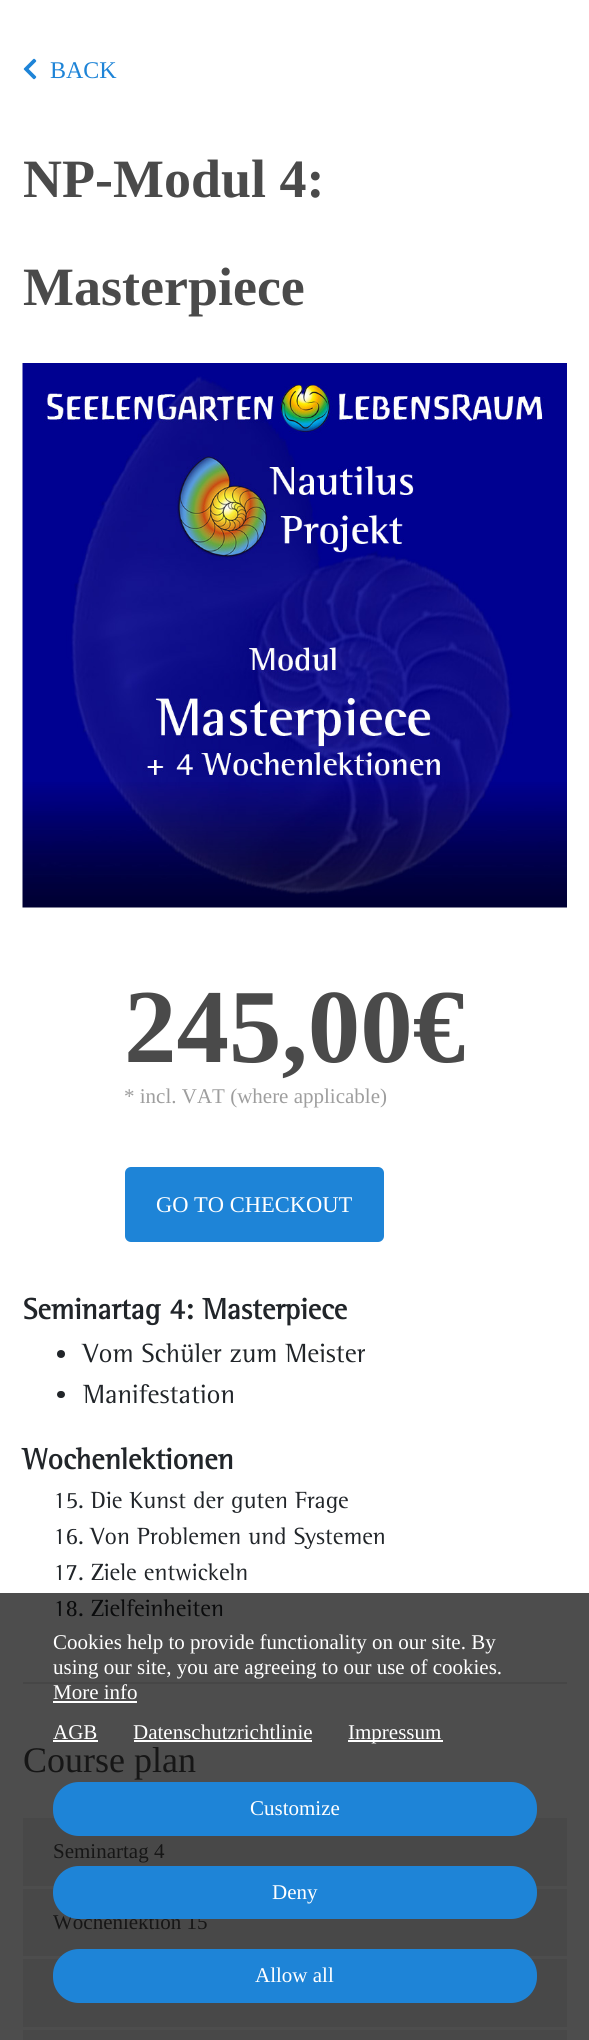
import math
import cairo

surface = cairo.ImageSurface(cairo.Format.RGB24, 589, 2040)
ctx = cairo.Context(surface)
options = cairo.FontOptions()
options.set_hint_metrics(cairo.HintMetrics.OFF)
options.set_hint_style(cairo.HintStyle.NONE)
ctx.set_font_options(options)
ctx.set_miter_limit(4)


def ink(r, g, b):
    ctx.set_source_rgb(r / 255, g / 255, b / 255)


def write(x, y, s, family, size, color, bold=False, italic=False):
    ctx.select_font_face(family, cairo.FontSlant.ITALIC if italic else cairo.FontSlant.NORMAL, cairo.FontWeight.BOLD if bold else cairo.FontWeight.NORMAL)
    ctx.set_font_size(size)
    ink(*color)
    ctx.move_to(x, y)
    ctx.show_text(s)


def block(x, y, w, h, *color):
    ink(*color)
    ctx.rectangle(x, y, w, h)
    ctx.fill()


def round_path(x, y, w, h, r):
    ctx.new_sub_path()
    for i, (u, v) in enumerate([(x + w - r, y + h - r), (x + r, y + h - r), (x + r, y + r), (x + w - r, y + r)]):
        ctx.arc(u, v, r, i * math.pi / 2, (i + 1) * math.pi / 2)
    ctx.close_path()


def paste(path, x, y, w, h):
    ctx.save()
    ctx.set_source_surface(cairo.ImageSurface.create_from_png(path), x, y)
    ctx.rectangle(x, y, w, h)
    ctx.fill()
    ctx.restore()


s1 = dict(family="Liberation Serif", size=24, color=(30, 132, 215))
s2 = dict(family="Liberation Serif", size=54, color=(74, 74, 74), bold=True)
s3 = dict(family="Liberation Serif", size=105, color=(74, 74, 74), bold=True)
s4 = dict(family="Liberation Serif", size=21, color=(158, 158, 158))
s5 = dict(family="Liberation Serif", size=22.5, color=(255, 255, 255))
s6 = dict(family="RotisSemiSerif", size=30, color=(33, 37, 41), bold=True)
s7 = dict(family="RotisSemiSerif", size=27, color=(33, 37, 41))
s8 = dict(family="RotisSemiSerif", size=24, color=(33, 37, 41))
s9 = dict(family="RotisSemiSerif", size=24, color=(10, 11, 12))
s10 = dict(family="Liberation Serif", size=36, color=(22, 22, 22))
s11 = dict(family="Liberation Serif", size=21, color=(22, 22, 22))
s12 = dict(family="Liberation Serif", size=21, color=(255, 255, 255))

ink(255, 255, 255)
ctx.paint()
block(0, 1593, 589, 447, 77, 77, 77)
paste("pic1.png", 23, 58, 14, 22)
write(50, 78, "BACK", **s1)
write(23, 197, "NP-Modul 4:", **s2)
write(23, 305, "Masterpiece", **s2)
paste("pic2.png", 22, 363, 545, 545)
write(124, 1062, "245,00€", **s3)
write(124, 1103, "* incl. VAT (where applicable)", **s4)
ink(30, 132, 215)
round_path(126, 1168, 257, 73, 5)
ctx.fill_preserve()
ctx.stroke()
write(156, 1212, "GO TO CHECKOUT", **s5)
write(23, 1319, "Seminartag 4: Masterpiece", **s6)
ctx.new_path()
ctx.arc(61, 1354, 4, 0, 2 * math.pi)
ctx.fill()
write(83, 1362, "Vom Schüler zum Meister", **s7)
round_path(57, 1391, 8, 7, 3.5)
ctx.fill()
write(83, 1403, "Manifestation", **s7)
write(23, 1469, "Wochenlektionen", **s6)
write(53, 1508, "15. Die Kunst der guten Frage", **s8)
write(53, 1544, "16. Von Problemen und Systemen", **s8)
write(53, 1580, "17. Ziele entwickeln", **s8)
write(53, 1616, "18. Zielfeinheiten", **s9)
block(23, 1682, 544, 2, 70, 70, 70)
write(23, 1772, "Course plan", **s10)
block(23, 1818, 544, 68, 72, 72, 72)
write(53, 1858, "Seminartag 4", **s11)
block(23, 1889, 544, 67, 72, 72, 72)
write(53, 1929, "Wochenlektion 15", **s11)
block(23, 1959, 544, 68, 72, 72, 72)
block(23, 2030, 544, 10, 72, 72, 72)
write(53, 1649, "Cookies help to provide functionality on our site. By", **s12)
write(53, 1674, "using our site, you are agreeing to our use of cookies.", **s12)
write(53, 1699, "More info", **s12)
block(53, 1701, 84, 2, 255, 255, 255)
write(53, 1739, "AGB", **s12)
block(53, 1740, 45, 2, 255, 255, 255)
write(133, 1739, "Datenschutzrichtlinie", **s12)
block(134, 1740, 178, 2, 255, 255, 255)
block(348, 1740, 95, 2, 255, 255, 255)
write(348, 1739, "Impressum", **s12)
ink(30, 132, 215)
round_path(53, 1782, 484, 54, 26)
ctx.fill()
write(250, 1815, "Customize", **s12)
ink(30, 132, 215)
round_path(53, 1866, 484, 53, 26)
ctx.fill()
write(272, 1899, "Deny", **s12)
ink(30, 132, 215)
round_path(53, 1949, 484, 54, 26)
ctx.fill()
write(255, 1982, "Allow all", **s12)
surface.write_to_png("screenshot.png")
